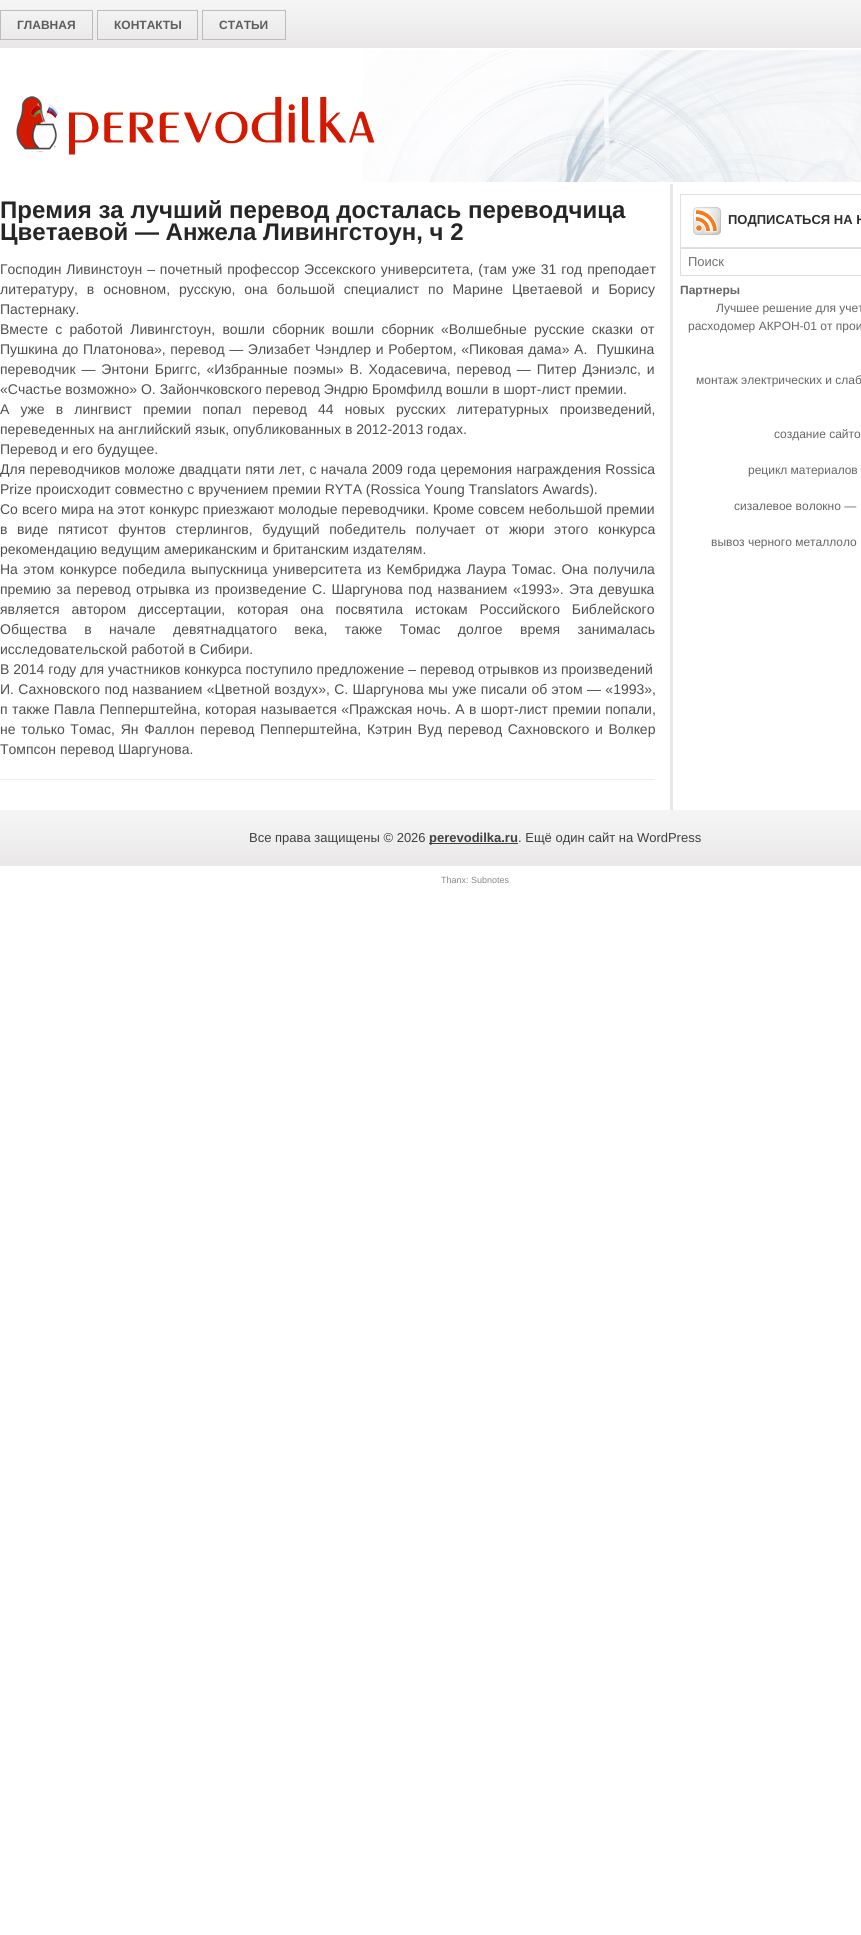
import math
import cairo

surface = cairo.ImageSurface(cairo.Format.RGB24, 861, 1935)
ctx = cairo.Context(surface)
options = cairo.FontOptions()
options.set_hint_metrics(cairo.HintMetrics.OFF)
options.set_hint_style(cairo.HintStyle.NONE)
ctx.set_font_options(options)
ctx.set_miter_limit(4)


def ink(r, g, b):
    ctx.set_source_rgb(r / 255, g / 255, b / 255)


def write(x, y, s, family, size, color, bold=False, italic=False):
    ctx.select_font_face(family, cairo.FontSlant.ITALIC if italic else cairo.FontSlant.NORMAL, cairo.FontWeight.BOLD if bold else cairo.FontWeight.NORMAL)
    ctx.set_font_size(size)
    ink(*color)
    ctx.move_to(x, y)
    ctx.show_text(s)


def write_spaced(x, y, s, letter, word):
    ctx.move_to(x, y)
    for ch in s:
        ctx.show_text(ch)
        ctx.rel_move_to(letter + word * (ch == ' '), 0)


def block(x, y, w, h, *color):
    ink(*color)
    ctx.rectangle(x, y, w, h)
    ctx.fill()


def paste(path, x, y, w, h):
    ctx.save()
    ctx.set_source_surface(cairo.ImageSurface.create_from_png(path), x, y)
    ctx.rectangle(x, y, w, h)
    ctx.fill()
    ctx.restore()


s1 = dict(family="Liberation Sans", size=12, color=(93, 93, 93), bold=True)
s2 = dict(family="Liberation Sans", size=24, color=(38, 38, 38), bold=True)
s3 = dict(family="Liberation Sans", size=14, color=(79, 79, 79))
s4 = dict(family="Liberation Sans", size=13, color=(47, 47, 47), bold=True)
s5 = dict(family="Liberation Sans", size=13, color=(112, 112, 112))
s6 = dict(family="Liberation Sans", size=12, color=(102, 102, 102), bold=True)
s7 = dict(family="Liberation Sans", size=12, color=(102, 102, 102))
s8 = dict(family="Liberation Sans", size=13, color=(64, 64, 64))
s9 = dict(family="Liberation Sans", size=13, color=(64, 64, 64), bold=True)
s10 = dict(family="Liberation Sans", size=9, color=(136, 136, 136))

ink(255, 255, 255)
ctx.paint()
paste("pic1.png", 0, 0, 861, 48)
paste("pic2.png", 363, 50, 498, 132)
ctx.rectangle(0.5, 10.5, 92, 29)
ink(188, 188, 188)
ctx.set_line_width(1)
ctx.stroke()
write(17, 29, "ГЛАВНАЯ", **s1)
ctx.rectangle(97.5, 10.5, 100, 29)
ink(188, 188, 188)
ctx.stroke()
write(114, 29, "КОНТАКТЫ", **s1)
ctx.rectangle(202.5, 10.5, 83, 29)
ink(188, 188, 188)
ctx.stroke()
write(219, 29, "СТАТЬИ", **s1)
paste("pic3.png", 16, 96, 359, 59)
block(670, 184, 3, 626, 232, 232, 232)
block(0, 779, 655, 1, 238, 237, 231)
write(0, 218, "Премия за лучший перевод досталась переводчица", **s2)
write(0, 240, "Цветаевой — Анжела Ливингстоун, ч 2", **s2)
ctx.select_font_face("Liberation Sans")
ctx.set_font_size(14)
ink(79, 79, 79)
write_spaced(0, 274, "Господин Ливинстоун – почетный профессор Эссекского университета, (там уже 31 год преподает", 0, 1)
write_spaced(0, 294, "литературу, в основном, русскую, она большой специалист по Марине Цветаевой и Борису", 0, 5.1)
write(0, 314, "Пастернаку.", **s3)
write_spaced(0, 334, "Вместе с работой Ливингстоун, вошли сборник вошли сборник «Волшебные русские сказки от", 0, 3.4)
write_spaced(0, 354, "Пушкина до Платонова», перевод — Элизабет Чэндлер и Робертом, «Пиковая дама» А.  Пушкина", 0, 0.75)
write_spaced(0, 374, "переводчик — Энтони Бриггс, «Избранные поэмы» В. Ходасевича, перевод — Питер Дэниэлс, и", 0, 2)
write(0, 394, "«Счастье возможно» О. Зайончковского перевод Эндрю Бромфилд вошли в шорт-лист премии.", **s3)
write_spaced(0, 414, "А уже в лингвист премии попал перевод 44 новых русских литературных произведений,", 0, 7.25)
write(0, 434, "переведенных на английский язык, опубликованных в 2012-2013 годах.", **s3)
write(0, 454, "Перевод и его будущее.", **s3)
write_spaced(0, 474, "Для переводчиков моложе двадцати пяти лет, с начала 2009 года церемония награждения Rossica", 0, 0.4)
write(0, 494, "Prize происходит совместно с вручением премии RYTA (Rossica Young Translators Awards).", **s3)
write_spaced(0, 514, "Со всего мира на этот конкурс приезжают молодые переводчики. Кроме совсем небольшой премии", 0, 0.1)
write_spaced(0, 534, "в виде пятисот фунтов стерлингов, будущий победитель получает от жюри этого конкурса", 0, 5.75)
write(0, 554, "рекомендацию ведущим американским и британским издателям.", **s3)
write_spaced(0, 574, "На этом конкурсе победила выпускница университета из Кембриджа Лаура Томас. Она получила", 0, 1.5)
write_spaced(0, 594, "премию за перевод отрывка из произведение С. Шаргунова под названием «1993». Эта девушка", 0, 1.6)
write_spaced(0, 614, "является автором диссертации, которая она посвятила истокам Российского Библейского", 0, 8)
write_spaced(0, 634, "Общества в начале девятнадцатого века, также Томас долгое время занималась", 0, 13.5)
write(0, 654, "исследовательской работой в Сибири.", **s3)
write(0, 674, "В 2014 году для участников конкурса поступило предложение – перевод отрывков из произведений", **s3)
write_spaced(0, 694, "И. Сахновского под названием «Цветной воздух», С. Шаргунова мы уже писали об этом — «1993»,", 0, 0.5)
write_spaced(0, 714, "п также Павла Пепперштейна, которая называется «Пражская ночь. А в шорт-лист премии попали,", 0, 0.5)
write_spaced(0, 734, "не только Томас, Ян Фаллон перевод Пепперштейна, Кэтрин Вуд перевод Сахновского и Волкер", 0, 1.75)
write(0, 754, "Томпсон перевод Шаргунова.", **s3)
ctx.rectangle(680.5, 194.5, 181, 53)
ink(224, 224, 224)
ctx.stroke()
paste("pic4.png", 693, 207, 28, 28)
write(728, 224, "ПОДПИСАТЬСЯ НА Н", **s4)
ctx.rectangle(680.5, 248.5, 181, 27)
ink(221, 221, 221)
ctx.stroke()
write(688, 266, "Поиск", **s5)
write(680, 294, "Партнеры", **s6)
write(716, 312, "Лучшее решение для учет", **s7)
write(688, 330, "расходомер АКРОН-01 от прои", **s7)
write(696, 384, "монтаж электрических и слаб", **s7)
write(774, 438, "создание сайто", **s7)
write(748, 474, "рецикл материалов", **s7)
write(734, 510, "сизалевое волокно —", **s7)
write(711, 546, "вывоз черного металлоло", **s7)
paste("pic5.png", 0, 810, 861, 56)
write(249, 842, "Все права защищены © 2026", **s8)
block(429, 843, 89, 1, 64, 64, 64)
write(429, 842, "perevodilka.ru", **s9)
write(518, 842, ". Ещё один сайт на WordPress", **s8)
write(441, 883, "Thanx: Subnotes", **s10)
surface.write_to_png("screenshot.png")
